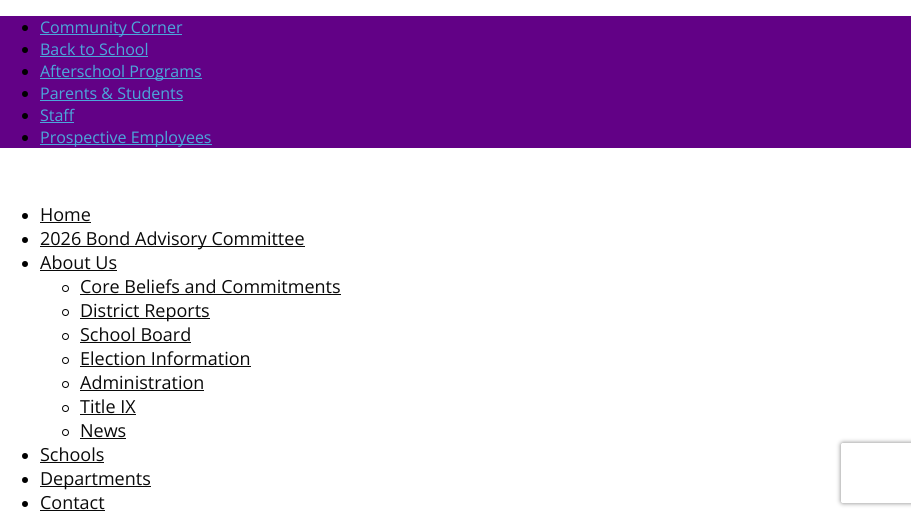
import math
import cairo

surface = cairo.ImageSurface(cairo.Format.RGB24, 911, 517)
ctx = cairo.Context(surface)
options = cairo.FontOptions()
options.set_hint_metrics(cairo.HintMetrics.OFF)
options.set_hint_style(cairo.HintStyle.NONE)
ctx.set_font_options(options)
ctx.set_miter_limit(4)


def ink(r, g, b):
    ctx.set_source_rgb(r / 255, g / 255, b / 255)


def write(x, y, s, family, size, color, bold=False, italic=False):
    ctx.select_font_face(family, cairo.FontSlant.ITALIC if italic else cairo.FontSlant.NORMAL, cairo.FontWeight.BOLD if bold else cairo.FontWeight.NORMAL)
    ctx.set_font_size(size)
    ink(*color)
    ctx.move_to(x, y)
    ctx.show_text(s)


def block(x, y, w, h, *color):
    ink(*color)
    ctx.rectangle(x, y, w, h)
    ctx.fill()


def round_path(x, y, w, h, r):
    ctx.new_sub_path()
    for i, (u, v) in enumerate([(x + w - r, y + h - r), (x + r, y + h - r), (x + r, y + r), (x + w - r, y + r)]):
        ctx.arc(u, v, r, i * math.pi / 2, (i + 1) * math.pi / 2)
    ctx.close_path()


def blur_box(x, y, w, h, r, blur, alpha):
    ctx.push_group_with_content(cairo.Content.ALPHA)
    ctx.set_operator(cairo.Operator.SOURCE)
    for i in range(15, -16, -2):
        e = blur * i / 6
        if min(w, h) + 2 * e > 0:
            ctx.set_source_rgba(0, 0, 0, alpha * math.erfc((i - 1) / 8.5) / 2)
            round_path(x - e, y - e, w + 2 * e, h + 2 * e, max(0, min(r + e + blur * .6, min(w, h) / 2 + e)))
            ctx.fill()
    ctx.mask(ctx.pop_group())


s1 = dict(family="Open Sans", size=16, color=(76, 167, 219))
s2 = dict(family="Open Sans", size=18, color=(10, 10, 10))

ink(255, 255, 255)
ctx.paint()
block(0, 16, 911, 132, 98, 1, 134)
ink(0, 0, 0)
ctx.arc(25, 28, 3, 0, 2 * math.pi)
ctx.fill()
block(40, 34, 142, 1, 76, 167, 219)
write(40, 33, "Community Corner", **s1)
ink(0, 0, 0)
ctx.new_path()
ctx.arc(25, 50, 3, 0, 2 * math.pi)
ctx.fill()
write(40, 55, "Back to School", **s1)
block(40, 56, 108, 1, 76, 167, 219)
ink(0, 0, 0)
ctx.new_path()
ctx.arc(25, 72, 3, 0, 2 * math.pi)
ctx.fill()
block(40, 78, 162, 1, 76, 167, 219)
write(40, 77, "Afterschool Programs", **s1)
ink(0, 0, 0)
ctx.new_path()
ctx.arc(25, 94, 3, 0, 2 * math.pi)
ctx.fill()
write(40, 99, "Parents & Students", **s1)
block(40, 100, 143, 1, 76, 167, 219)
ink(0, 0, 0)
ctx.new_path()
ctx.arc(25, 116, 3, 0, 2 * math.pi)
ctx.fill()
write(40, 121, "Staff", **s1)
block(40, 122, 34, 1, 76, 167, 219)
ink(0, 0, 0)
ctx.new_path()
ctx.arc(25, 138, 3, 0, 2 * math.pi)
ctx.fill()
block(40, 144, 172, 1, 76, 167, 219)
write(40, 143, "Prospective Employees", **s1)
ink(0, 0, 0)
ctx.new_path()
ctx.arc(25, 216, 3, 0, 2 * math.pi)
ctx.fill()
write(40, 221, "Home", **s2)
block(40, 222, 51, 1, 10, 10, 10)
ink(0, 0, 0)
ctx.new_path()
ctx.arc(25, 240, 3, 0, 2 * math.pi)
ctx.fill()
block(40, 246, 265, 1, 10, 10, 10)
write(40, 245, "2026 Bond Advisory Committee", **s2)
ink(0, 0, 0)
ctx.new_path()
ctx.arc(25, 264, 3, 0, 2 * math.pi)
ctx.fill()
write(40, 269, "About Us", **s2)
block(40, 270, 77, 1, 10, 10, 10)
ctx.new_path()
ctx.arc(65.5, 288.5, 3, 0, 2 * math.pi)
ink(0, 0, 0)
ctx.set_line_width(1)
ctx.stroke()
write(80, 293, "Core Beliefs and Commitments", **s2)
block(80, 294, 261, 1, 10, 10, 10)
ctx.new_path()
ctx.arc(65.5, 312.5, 3, 0, 2 * math.pi)
ink(0, 0, 0)
ctx.stroke()
block(80, 318, 130, 1, 10, 10, 10)
write(80, 317, "District Reports", **s2)
ctx.new_path()
ctx.arc(65.5, 336.5, 3, 0, 2 * math.pi)
ink(0, 0, 0)
ctx.stroke()
write(80, 341, "School Board", **s2)
block(80, 342, 111, 1, 10, 10, 10)
ctx.new_path()
ctx.arc(65.5, 360.5, 3, 0, 2 * math.pi)
ink(0, 0, 0)
ctx.stroke()
write(80, 365, "Election Information", **s2)
block(80, 366, 171, 1, 10, 10, 10)
ctx.new_path()
ctx.arc(65.5, 384.5, 3, 0, 2 * math.pi)
ink(0, 0, 0)
ctx.stroke()
write(80, 389, "Administration", **s2)
block(80, 390, 124, 1, 10, 10, 10)
ctx.new_path()
ctx.arc(65.5, 408.5, 3, 0, 2 * math.pi)
ink(0, 0, 0)
ctx.stroke()
write(80, 413, "Title IX", **s2)
block(80, 414, 56, 1, 10, 10, 10)
ctx.new_path()
ctx.arc(65.5, 432.5, 3, 0, 2 * math.pi)
ink(0, 0, 0)
ctx.stroke()
write(80, 437, "News", **s2)
block(80, 438, 46, 1, 10, 10, 10)
ink(0, 0, 0)
ctx.new_path()
ctx.arc(25, 456, 3, 0, 2 * math.pi)
ctx.fill()
write(40, 461, "Schools", **s2)
block(40, 462, 64, 1, 10, 10, 10)
ink(0, 0, 0)
ctx.new_path()
ctx.arc(25, 480, 3, 0, 2 * math.pi)
ctx.fill()
block(40, 486, 111, 1, 10, 10, 10)
write(40, 485, "Departments", **s2)
ink(0, 0, 0)
ctx.new_path()
ctx.arc(25, 504, 3, 0, 2 * math.pi)
ctx.fill()
write(40, 509, "Contact", **s2)
block(40, 510, 65, 1, 10, 10, 10)
ctx.save()
ctx.set_fill_rule(cairo.FillRule.EVEN_ODD)
ctx.new_path()
ctx.move_to(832, 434)
ctx.line_to(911, 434)
ctx.line_to(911, 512)
ctx.line_to(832, 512)
ctx.close_path()
ctx.move_to(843, 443)
ctx.line_to(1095, 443)
ctx.curve_to(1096, 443, 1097, 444, 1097, 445)
ctx.line_to(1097, 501)
ctx.curve_to(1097, 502, 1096, 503, 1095, 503)
ctx.line_to(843, 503)
ctx.curve_to(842, 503, 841, 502, 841, 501)
ctx.line_to(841, 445)
ctx.curve_to(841, 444, 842, 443, 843, 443)
ctx.close_path()
ctx.clip()
ink(128, 128, 128)
blur_box(841, 443, 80, 60, 2, 2.5, 1)
ctx.restore()
surface.write_to_png("screenshot.png")
